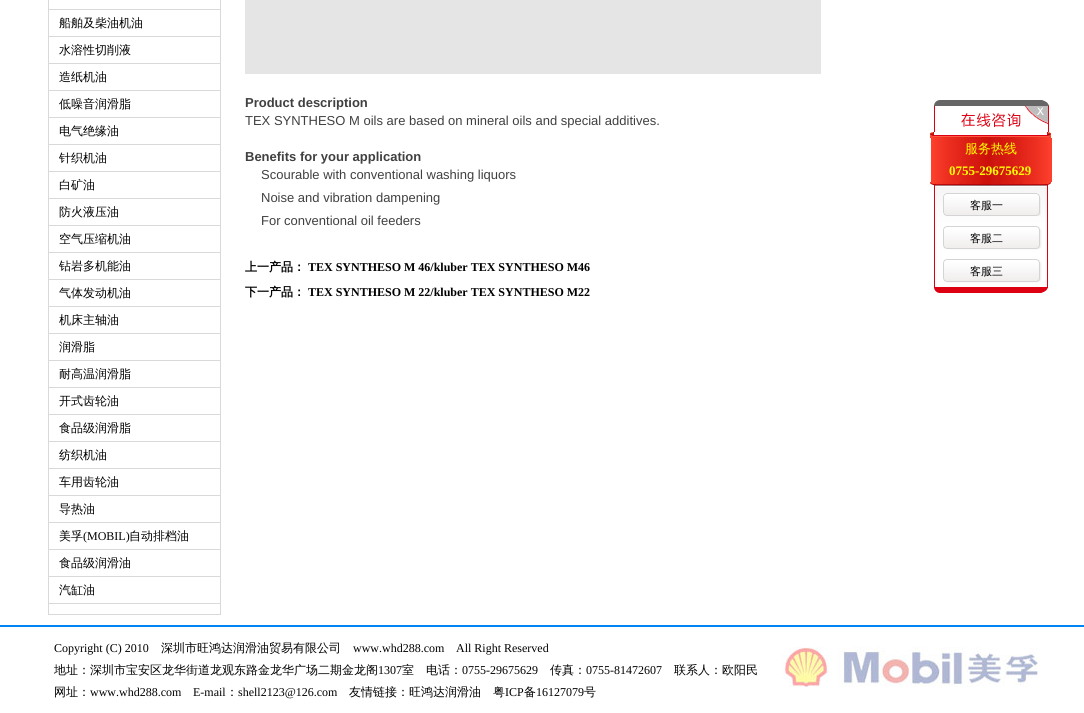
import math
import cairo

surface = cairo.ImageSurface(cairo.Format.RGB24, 1084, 713)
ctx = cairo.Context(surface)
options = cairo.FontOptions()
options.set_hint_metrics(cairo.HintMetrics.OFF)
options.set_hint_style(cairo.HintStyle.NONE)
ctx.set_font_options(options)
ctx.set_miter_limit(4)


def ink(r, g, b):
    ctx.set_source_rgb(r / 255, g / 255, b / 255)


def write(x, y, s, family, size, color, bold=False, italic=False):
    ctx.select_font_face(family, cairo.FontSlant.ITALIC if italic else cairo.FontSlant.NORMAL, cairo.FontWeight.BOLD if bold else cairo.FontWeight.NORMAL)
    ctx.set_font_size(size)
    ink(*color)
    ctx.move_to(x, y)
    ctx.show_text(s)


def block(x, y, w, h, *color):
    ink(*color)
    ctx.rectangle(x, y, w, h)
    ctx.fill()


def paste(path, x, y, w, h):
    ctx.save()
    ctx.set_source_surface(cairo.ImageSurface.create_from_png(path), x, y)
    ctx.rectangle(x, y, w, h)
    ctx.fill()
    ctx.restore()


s1 = dict(family="WenQuanYi Zen Hei Medium", size=12, color=(0, 0, 0))
s2 = dict(family="Liberation Serif", size=12, color=(0, 0, 0))
s3 = dict(family="Liberation Sans", size=13, color=(64, 64, 64), bold=True)
s4 = dict(family="Liberation Sans", size=13, color=(64, 64, 64))
s5 = dict(family="WenQuanYi Zen Hei", size=12, color=(0, 0, 0), bold=True)
s6 = dict(family="Liberation Serif", size=12, color=(0, 0, 0), bold=True)
s7 = dict(family="WenQuanYi Zen Hei Medium", size=13, color=(255, 255, 0))
s8 = dict(family="Liberation Serif", size=13, color=(255, 255, 0), bold=True)
s9 = dict(family="WenQuanYi Zen Hei Medium", size=11, color=(0, 0, 0))

ink(255, 255, 255)
ctx.paint()
block(220, 0, 1, 615, 217, 217, 217)
block(48, 614, 173, 1, 217, 217, 217)
block(48, 0, 1, 615, 217, 217, 217)
block(49, 9, 171, 1, 217, 217, 217)
block(49, 36, 171, 1, 217, 217, 217)
write(59, 27, "船舶及柴油机油", **s1)
block(49, 63, 171, 1, 217, 217, 217)
write(59, 54, "水溶性切削液", **s1)
block(49, 90, 171, 1, 217, 217, 217)
write(59, 81, "造纸机油", **s1)
block(49, 117, 171, 1, 217, 217, 217)
write(59, 108, "低噪音润滑脂", **s1)
block(49, 144, 171, 1, 217, 217, 217)
write(59, 135, "电气绝缘油", **s1)
block(49, 171, 171, 1, 217, 217, 217)
write(59, 162, "针织机油", **s1)
block(49, 198, 171, 1, 217, 217, 217)
write(59, 189, "白矿油", **s1)
block(49, 225, 171, 1, 217, 217, 217)
write(59, 216, "防火液压油", **s1)
block(49, 252, 171, 1, 217, 217, 217)
write(59, 243, "空气压缩机油", **s1)
block(49, 279, 171, 1, 217, 217, 217)
write(59, 270, "钻岩多机能油", **s1)
block(49, 306, 171, 1, 217, 217, 217)
write(59, 297, "气体发动机油", **s1)
block(49, 333, 171, 1, 217, 217, 217)
write(59, 324, "机床主轴油", **s1)
block(49, 360, 171, 1, 217, 217, 217)
write(59, 351, "润滑脂", **s1)
block(49, 387, 171, 1, 217, 217, 217)
write(59, 378, "耐高温润滑脂", **s1)
block(49, 414, 171, 1, 217, 217, 217)
write(59, 405, "开式齿轮油", **s1)
block(49, 441, 171, 1, 217, 217, 217)
write(59, 432, "食品级润滑脂", **s1)
block(49, 468, 171, 1, 217, 217, 217)
write(59, 459, "纺织机油", **s1)
block(49, 495, 171, 1, 217, 217, 217)
write(59, 486, "车用齿轮油", **s1)
block(49, 522, 171, 1, 217, 217, 217)
write(59, 513, "导热油", **s1)
block(49, 549, 171, 1, 217, 217, 217)
write(59, 540, "美孚", **s1)
write(83, 540, "(MOBIL)", **s2)
write(129, 540, "自动排档油", **s1)
block(49, 576, 171, 1, 217, 217, 217)
write(59, 567, "食品级润滑油", **s1)
block(49, 603, 171, 1, 217, 217, 217)
write(59, 594, "汽缸油", **s1)
block(245, 0, 576, 74, 229, 229, 229)
write(245, 107, "Product description", **s3)
write(245, 125, "TEX SYNTHESO M oils are based on mineral oils and special additives.", **s4)
write(245, 161, "Benefits for your application", **s3)
write(261, 179, "Scourable with conventional washing liquors", **s4)
write(261, 202, "Noise and vibration dampening", **s4)
write(261, 225, "For conventional oil feeders", **s4)
write(245, 271, "上一产品：", **s5)
write(308, 271, "TEX SYNTHESO M 46/kluber TEX SYNTHESO M46", **s6)
write(245, 296, "下一产品：", **s5)
write(308, 296, "TEX SYNTHESO M 22/kluber TEX SYNTHESO M22", **s6)
paste("pic1.png", 934, 100, 115, 32)
paste("pic2.png", 930, 132, 121, 6)
paste("pic3.png", 931, 138, 121, 44)
write(965, 153, "服务热线", **s7)
write(949, 175, "0755-29675629", **s8)
paste("pic4.png", 930, 182, 121, 5)
paste("pic5.png", 934, 187, 114, 100)
paste("pic6.png", 943, 193, 98, 23)
write(970, 209, "客服一", **s9)
paste("pic7.png", 943, 226, 99, 24)
write(970, 242, "客服二", **s9)
paste("pic8.png", 943, 259, 99, 24)
write(970, 275, "客服三", **s9)
paste("pic9.png", 934, 287, 114, 6)
block(0, 625, 1084, 2, 0, 132, 243)
paste("pic10.png", 781, 647, 257, 40)
write(54, 652, "Copyright (C) 2010", **s2)
write(161, 652, "深圳市旺鸿达润滑油贸易有限公司", **s1)
write(353, 652, "www.whd288.com", **s2)
write(456, 652, "All Right Reserved", **s2)
write(54, 674, "地址：深圳市宝安区龙华街道龙观东路金龙华广场二期金龙阁", **s1)
write(378, 674, "1307", **s2)
write(402, 674, "室　电话：", **s1)
write(462, 674, "0755-29675629", **s2)
write(550, 674, "传真：", **s1)
write(586, 674, "0755-81472607", **s2)
write(674, 674, "联系人：欧阳民", **s1)
write(54, 696, "网址：", **s1)
write(90, 696, "www.whd288.com", **s2)
write(193, 696, "E-mail", **s2)
write(226, 696, "：", **s1)
write(238, 696, "shell2123@126.com", **s2)
write(349, 696, "友情链接：旺鸿达润滑油", **s1)
write(493, 696, "粤", **s1)
write(505, 696, "ICP", **s2)
write(524, 696, "备", **s1)
write(536, 696, "16127079", **s2)
write(584, 696, "号", **s1)
surface.write_to_png("screenshot.png")
